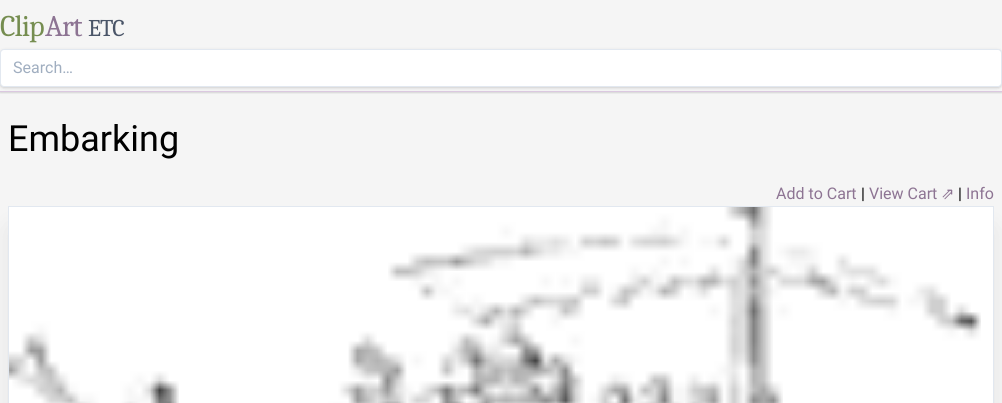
import math
import cairo

surface = cairo.ImageSurface(cairo.Format.RGB24, 1002, 403)
ctx = cairo.Context(surface)
options = cairo.FontOptions()
options.set_hint_metrics(cairo.HintMetrics.OFF)
options.set_hint_style(cairo.HintStyle.NONE)
ctx.set_font_options(options)
ctx.set_miter_limit(4)


def ink(r, g, b):
    ctx.set_source_rgb(r / 255, g / 255, b / 255)


def write(x, y, s, family, size, color, bold=False, italic=False):
    ctx.select_font_face(family, cairo.FontSlant.ITALIC if italic else cairo.FontSlant.NORMAL, cairo.FontWeight.BOLD if bold else cairo.FontWeight.NORMAL)
    ctx.set_font_size(size)
    ink(*color)
    ctx.move_to(x, y)
    ctx.show_text(s)


def write_spaced(x, y, s, letter, word):
    ctx.move_to(x, y)
    for ch in s:
        ctx.show_text(ch)
        ctx.rel_move_to(letter + word * (ch == ' '), 0)


def block(x, y, w, h, *color):
    ink(*color)
    ctx.rectangle(x, y, w, h)
    ctx.fill()


def round_path(x, y, w, h, r):
    ctx.new_sub_path()
    for i, (u, v) in enumerate([(x + w - r, y + h - r), (x + r, y + h - r), (x + r, y + r), (x + w - r, y + r)]):
        ctx.arc(u, v, r, i * math.pi / 2, (i + 1) * math.pi / 2)
    ctx.close_path()


def blur_box(x, y, w, h, r, blur, alpha):
    ctx.push_group_with_content(cairo.Content.ALPHA)
    ctx.set_operator(cairo.Operator.SOURCE)
    for i in range(15, -16, -2):
        e = blur * i / 6
        if min(w, h) + 2 * e > 0:
            ctx.set_source_rgba(0, 0, 0, alpha * math.erfc((i - 1) / 8.5) / 2)
            round_path(x - e, y - e, w + 2 * e, h + 2 * e, max(0, min(r + e + blur * .6, min(w, h) / 2 + e)))
            ctx.fill()
    ctx.mask(ctx.pop_group())


def paste(path, x, y, w, h):
    ctx.save()
    ctx.set_source_surface(cairo.ImageSurface.create_from_png(path), x, y)
    ctx.rectangle(x, y, w, h)
    ctx.fill()
    ctx.restore()


s1 = dict(family="Roboto", size=16, color=(160, 174, 192))
s2 = dict(family="Roboto", size=36, color=(0, 0, 0))
s3 = dict(family="Roboto", size=16, color=(141, 116, 147))
s4 = dict(family="Roboto", size=16, color=(0, 0, 0))
s5 = dict(family="DejaVu Sans", size=16, color=(141, 116, 147))

ink(245, 245, 245)
ctx.paint()
ctx.save()
ctx.rectangle(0, 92, 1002, 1)
ctx.clip()
ink(0, 0, 0)
blur_box(0, 1, 1002, 92, 0, 1, 0.06)
ctx.restore()
ctx.save()
ctx.rectangle(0, 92, 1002, 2)
ctx.clip()
ink(0, 0, 0)
blur_box(0, 1, 1002, 92, 0, 1.5, 0.1)
ctx.restore()
block(0, 91, 1002, 1, 219, 200, 224)
ctx.select_font_face("Caladea")
ctx.set_font_size(30)
ink(117, 141, 80)
write_spaced(0, 36, "Clip", -1, 0)
ink(141, 116, 147)
write_spaced(45, 36, "Art", -1, 0)
ctx.set_font_size(24)
ink(74, 85, 104)
write_spaced(88, 36, "ETC", -1, 0)
ink(0, 0, 0)
blur_box(0, 50, 1002, 38, 4, 1, 0.06)
blur_box(0, 50, 1002, 38, 4, 1.5, 0.1)
ink(255, 255, 255)
round_path(0.5, 49.5, 1001, 37, 3.5)
ctx.fill_preserve()
ink(226, 232, 240)
ctx.set_line_width(1)
ctx.stroke()
write(13, 73, "Search…", **s1)
write(8, 151, "Embarking", **s2)
write(776, 199, "Add to Cart", **s3)
write(861, 199, "|", **s4)
write(869, 199, "View Cart", **s3)
write(941, 199, "⇗", **s5)
write(958, 199, "|", **s4)
write(966, 199, "Info", **s3)
ink(0, 0, 0)
blur_box(13, 231, 976, 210, 0, 12.5, 0.1)
ctx.rectangle(8.5, 206.5, 985, 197)
ink(226, 232, 240)
ctx.stroke()
paste("pic1.png", 9, 207, 984, 196)
surface.write_to_png("screenshot.png")
